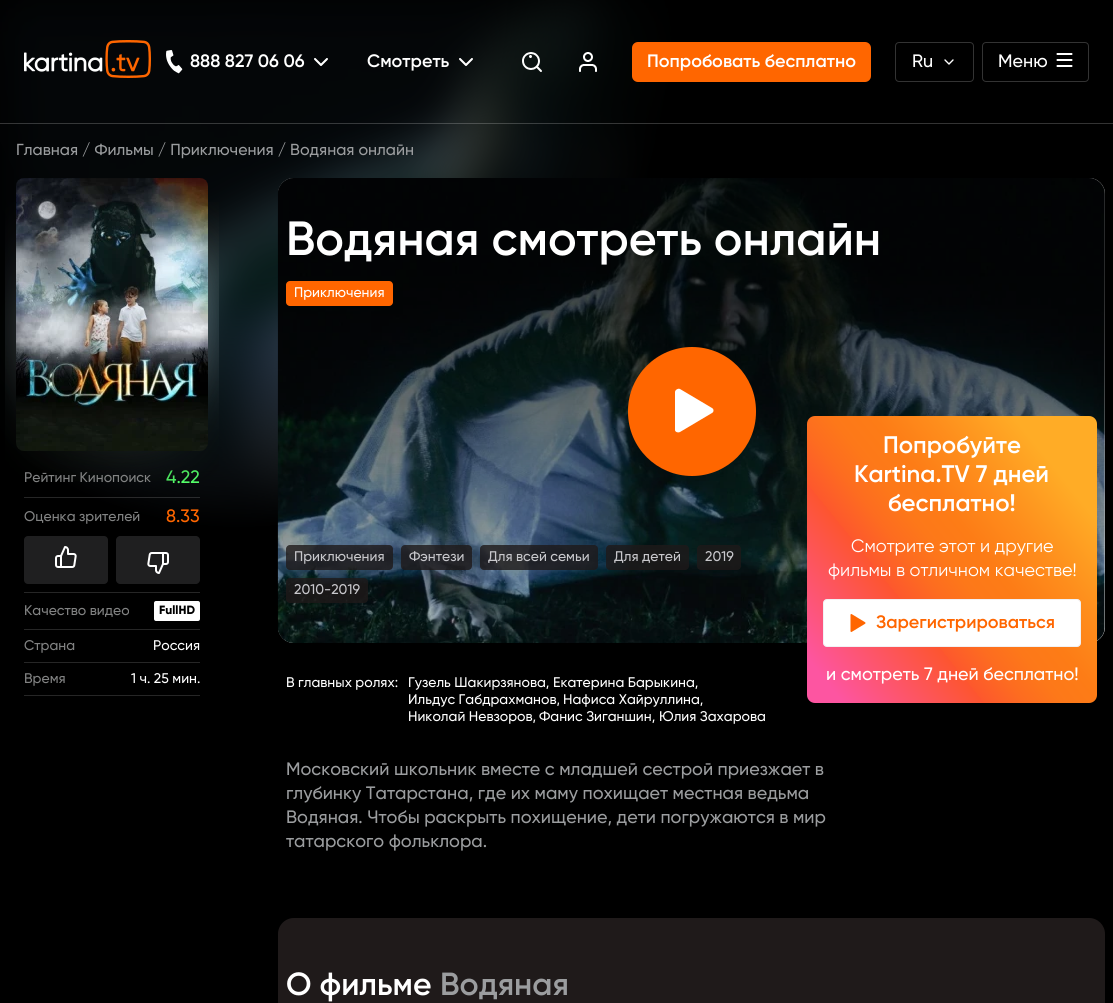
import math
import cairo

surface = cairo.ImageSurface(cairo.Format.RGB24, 1113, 1003)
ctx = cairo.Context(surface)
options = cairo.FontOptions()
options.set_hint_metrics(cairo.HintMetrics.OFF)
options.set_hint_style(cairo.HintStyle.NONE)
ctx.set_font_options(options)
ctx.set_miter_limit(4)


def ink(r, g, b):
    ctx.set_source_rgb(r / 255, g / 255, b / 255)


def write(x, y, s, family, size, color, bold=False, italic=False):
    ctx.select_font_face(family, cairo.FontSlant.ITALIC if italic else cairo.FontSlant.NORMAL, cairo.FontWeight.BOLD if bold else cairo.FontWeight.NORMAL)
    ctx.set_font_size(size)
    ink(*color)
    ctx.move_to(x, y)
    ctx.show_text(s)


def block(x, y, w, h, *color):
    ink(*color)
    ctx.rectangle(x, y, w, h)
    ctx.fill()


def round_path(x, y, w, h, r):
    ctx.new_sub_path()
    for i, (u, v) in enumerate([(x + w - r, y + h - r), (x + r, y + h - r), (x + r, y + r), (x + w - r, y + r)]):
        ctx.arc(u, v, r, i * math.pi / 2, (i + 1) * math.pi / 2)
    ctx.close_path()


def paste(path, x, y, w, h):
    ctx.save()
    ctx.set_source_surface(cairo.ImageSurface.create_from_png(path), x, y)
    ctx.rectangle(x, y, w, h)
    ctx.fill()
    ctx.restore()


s1 = dict(family="Gilroy SemiBold", size=18, color=(255, 255, 255))
s2 = dict(family="Gilroy Medium", size=18, color=(255, 255, 255))
s3 = dict(family="Gilroy Medium", size=16, color=(155, 157, 159))
s4 = dict(family="Gilroy Medium", size=18, color=(84, 255, 105))
s5 = dict(family="Gilroy Medium", size=14, color=(130, 131, 131))
s6 = dict(family="Gilroy Medium", size=18, color=(255, 102, 0))
s7 = dict(family="Gilroy ExtraBold", size=12, color=(0, 0, 0))
s8 = dict(family="Gilroy Medium", size=14, color=(255, 255, 255))
s9 = dict(family="Gilroy SemiBold", size=48, color=(255, 255, 255))
s10 = dict(family="Gilroy Medium", size=14, color=(200, 200, 204))
s11 = dict(family="Gilroy SemiBold", size=24, color=(255, 255, 255))
s12 = dict(family="Gilroy", size=18, color=(255, 255, 255))
s13 = dict(family="Gilroy SemiBold", size=18, color=(255, 102, 0))
s14 = dict(family="Gilroy Medium", size=18, color=(155, 157, 159))
s15 = dict(family="Gilroy SemiBold", size=32, color=(255, 255, 255))
s16 = dict(family="Gilroy SemiBold", size=32, color=(155, 157, 159))

ink(0, 0, 0)
ctx.paint()
paste("pic9.png", 0, 0, 676, 527)
gradient = cairo.RadialGradient(0, 0, 0, 0, 0, 1)
gradient.set_matrix(cairo.Matrix(1 / 618, 0, 0, 1 / 760, -1 * 239 / 618, -1 * -11 / 760))
gradient.add_color_stop_rgba(0.38, 0, 0, 0, 0.4)
gradient.add_color_stop_rgba(0.71, 0, 0, 0, 1)
ctx.set_source(gradient)
ctx.rectangle(0, 0, 676, 527)
ctx.fill()
ctx.set_source_rgba(1, 1, 1, 0.2)
ctx.rectangle(0, 123, 1113, 1)
ctx.fill()
paste("pic1.png", 24, 40, 127, 38)
paste("pic2.png", 166, 50, 17, 24)
write(190, 67, "888 827 06 06", **s1)
paste("pic3.png", 314, 58, 14, 8)
write(367, 67, "Смотреть", **s1)
paste("pic4.png", 459, 58, 14, 8)
paste("pic5.png", 522, 52, 20, 20)
paste("pic6.png", 579, 52, 18, 20)
ink(255, 102, 0)
round_path(632, 42, 239, 40, 6)
ctx.fill()
write(647, 67, "Попробовать бесплатно", **s1)
round_path(895.5, 42.5, 78, 39, 3.5)
ink(51, 51, 51)
ctx.set_line_width(1)
ctx.stroke()
write(912, 67, "Ru", **s2)
paste("pic7.png", 944, 59, 10, 6)
round_path(982.5, 42.5, 106, 39, 3.5)
ink(51, 51, 51)
ctx.stroke()
write(998, 67, "Меню", **s2)
paste("pic8.png", 1056, 53, 17, 14)
write(16, 155, "Главная / Фильмы / Приключения / Водяная онлайн", **s3)
write(166, 483, "4.22", **s4)
paste("pic11.png", 5, 202, 214, 279)
paste("pic10.png", 16, 178, 192, 273)
write(24, 482, "Рейтинг Кинопоиск", **s5)
ctx.set_source_rgba(1, 1, 1, 0.15)
ctx.rectangle(24, 497, 176, 1)
ctx.fill()
write(24, 521, "Оценка зрителей", **s5)
write(166, 522, "8.33", **s6)
ink(31, 31, 32)
round_path(24, 536, 84, 48, 4)
ctx.fill()
paste("pic12.png", 55, 546, 22, 22)
ctx.new_path()
ctx.move_to(196, 584)
ctx.line_to(120, 584)
ctx.curve_to(118, 584, 116, 582, 116, 580)
ctx.line_to(116, 540)
ctx.curve_to(116, 538, 118, 536, 120, 536)
ctx.line_to(196, 536)
ctx.curve_to(198, 536, 200, 538, 200, 540)
ctx.line_to(200, 580)
ctx.curve_to(200, 582, 198, 584, 196, 584)
ctx.close_path()
ctx.fill()
paste("pic13.png", 147, 552, 22, 22)
block(24, 592, 176, 1, 38, 38, 38)
write(24, 615, "Качество видео", **s5)
ink(255, 255, 255)
round_path(154, 601, 46, 20, 2)
ctx.fill()
write(159, 614, "FullHD", **s7)
block(24, 629, 176, 1, 38, 38, 38)
write(24, 650, "Страна", **s5)
write(153, 650, "Россия", **s8)
block(24, 662, 176, 1, 38, 38, 38)
write(24, 683, "Время", **s5)
write(131, 683, "1 ч. 25 мин.", **s8)
block(24, 695, 176, 1, 38, 38, 38)
ink(242, 242, 242)
round_path(278, 178, 827, 465, 16)
ctx.fill()
paste("pic14.png", 277, 178, 828, 465)
gradient = cairo.LinearGradient(691, 178, 691, 643)
gradient.add_color_stop_rgba(0.21, 0, 0, 0, 0.65)
gradient.add_color_stop_rgba(1, 0, 0, 0, 0)
ctx.set_source(gradient)
round_path(278, 178, 827, 465, 16)
ctx.fill()
write(286, 255, "Водяная смотреть онлайн", **s9)
ink(255, 102, 0)
round_path(286, 281, 107, 25, 4)
ctx.fill()
write(294, 297, "Приключения", **s8)
ink(255, 102, 0)
round_path(628, 347, 128, 129, 64)
ctx.fill()
ink(255, 255, 255)
ctx.new_path()
ctx.move_to(712, 408)
ctx.curve_to(714, 409, 714, 412, 712, 413)
ctx.line_to(680, 432)
ctx.curve_to(678, 433, 675, 432, 675, 430)
ctx.line_to(675, 392)
ctx.curve_to(675, 390, 678, 388, 680, 389)
ctx.close_path()
ctx.fill()
ctx.set_source_rgba(0.122, 0.102, 0.102, 0.8)
round_path(286, 545, 107, 25, 4)
ctx.fill()
write(294, 561, "Приключения", **s10)
ctx.set_source_rgba(0.122, 0.102, 0.102, 0.8)
round_path(401, 545, 71, 25, 4)
ctx.fill()
write(409, 561, "Фэнтези", **s10)
ctx.set_source_rgba(0.122, 0.102, 0.102, 0.8)
round_path(480, 545, 118, 25, 4)
ctx.fill()
write(488, 561, "Для всей семьи", **s10)
ctx.set_source_rgba(0.122, 0.102, 0.102, 0.8)
round_path(606, 545, 83, 25, 4)
ctx.fill()
write(614, 561, "Для детей", **s10)
ctx.set_source_rgba(0.122, 0.102, 0.102, 0.8)
round_path(697, 545, 44, 25, 4)
ctx.fill()
write(705, 561, "2019", **s10)
ctx.set_source_rgba(0.122, 0.102, 0.102, 0.8)
round_path(286, 578, 82, 25, 4)
ctx.fill()
write(294, 594, "2010-2019", **s10)
gradient = cairo.LinearGradient(794, 687, 1110, 432)
gradient.add_color_stop_rgba(0.07, 0.992, 0.333, 0.631, 1)
gradient.add_color_stop_rgba(0.34, 0.992, 0.333, 0.184, 1)
gradient.add_color_stop_rgba(0.34, 0.992, 0.345, 0.176, 1)
gradient.add_color_stop_rgba(0.42, 0.992, 0.424, 0.125, 1)
gradient.add_color_stop_rgba(0.49, 0.992, 0.471, 0.098, 1)
gradient.add_color_stop_rgba(0.57, 0.992, 0.486, 0.086, 1)
gradient.add_color_stop_rgba(0.68, 0.996, 0.553, 0.11, 1)
gradient.add_color_stop_rgba(0.84, 1, 0.675, 0.149, 1)
ctx.set_source(gradient)
round_path(807, 416, 290, 287, 8)
ctx.fill()
write(883, 453, "Попробуйте", **s11)
write(854, 482, "Kartina.TV 7 дней", **s11)
write(888, 511, "бесплатно!", **s11)
write(851, 552, "Смотрите этот и другие", **s12)
write(828, 576, "фильмы в отличном качестве!", **s12)
round_path(823.5, 599.5, 257, 47, 3.5)
ctx.fill_preserve()
ink(241, 241, 244)
ctx.stroke()
paste("pic15.png", 850, 614, 16, 18)
write(876, 628, "Зарегистрироваться", **s13)
write(826, 680, "и смотреть 7 дней бесплатно!", **s2)
write(286, 687, "В главных ролях:", **s8)
write(408, 687, "Гузель Шакирзянова,", **s8)
write(553, 687, "Екатерина Барыкина,", **s8)
write(408, 704, "Ильдус Габдрахманов,", **s8)
write(563, 704, "Нафиса Хайруллина,", **s8)
write(408, 721, "Николай Невзоров,", **s8)
write(539, 721, "Фанис Зиганшин,", **s8)
write(659, 721, "Юлия Захарова", **s8)
write(286, 775, "Московский школьник вместе с младшей сестрой приезжает в", **s14)
write(286, 799, "глубинку Татарстана, где их маму похищает местная ведьма", **s14)
write(286, 823, "Водяная. Чтобы раскрыть похищение, дети погружаются в мир", **s14)
write(286, 847, "татарского фольклора.", **s14)
ink(31, 26, 26)
round_path(278, 918, 827, 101, 16)
ctx.fill()
write(286, 995, "О фильме", **s15)
write(440, 995, "Водяная", **s16)
surface.write_to_png("screenshot.png")
